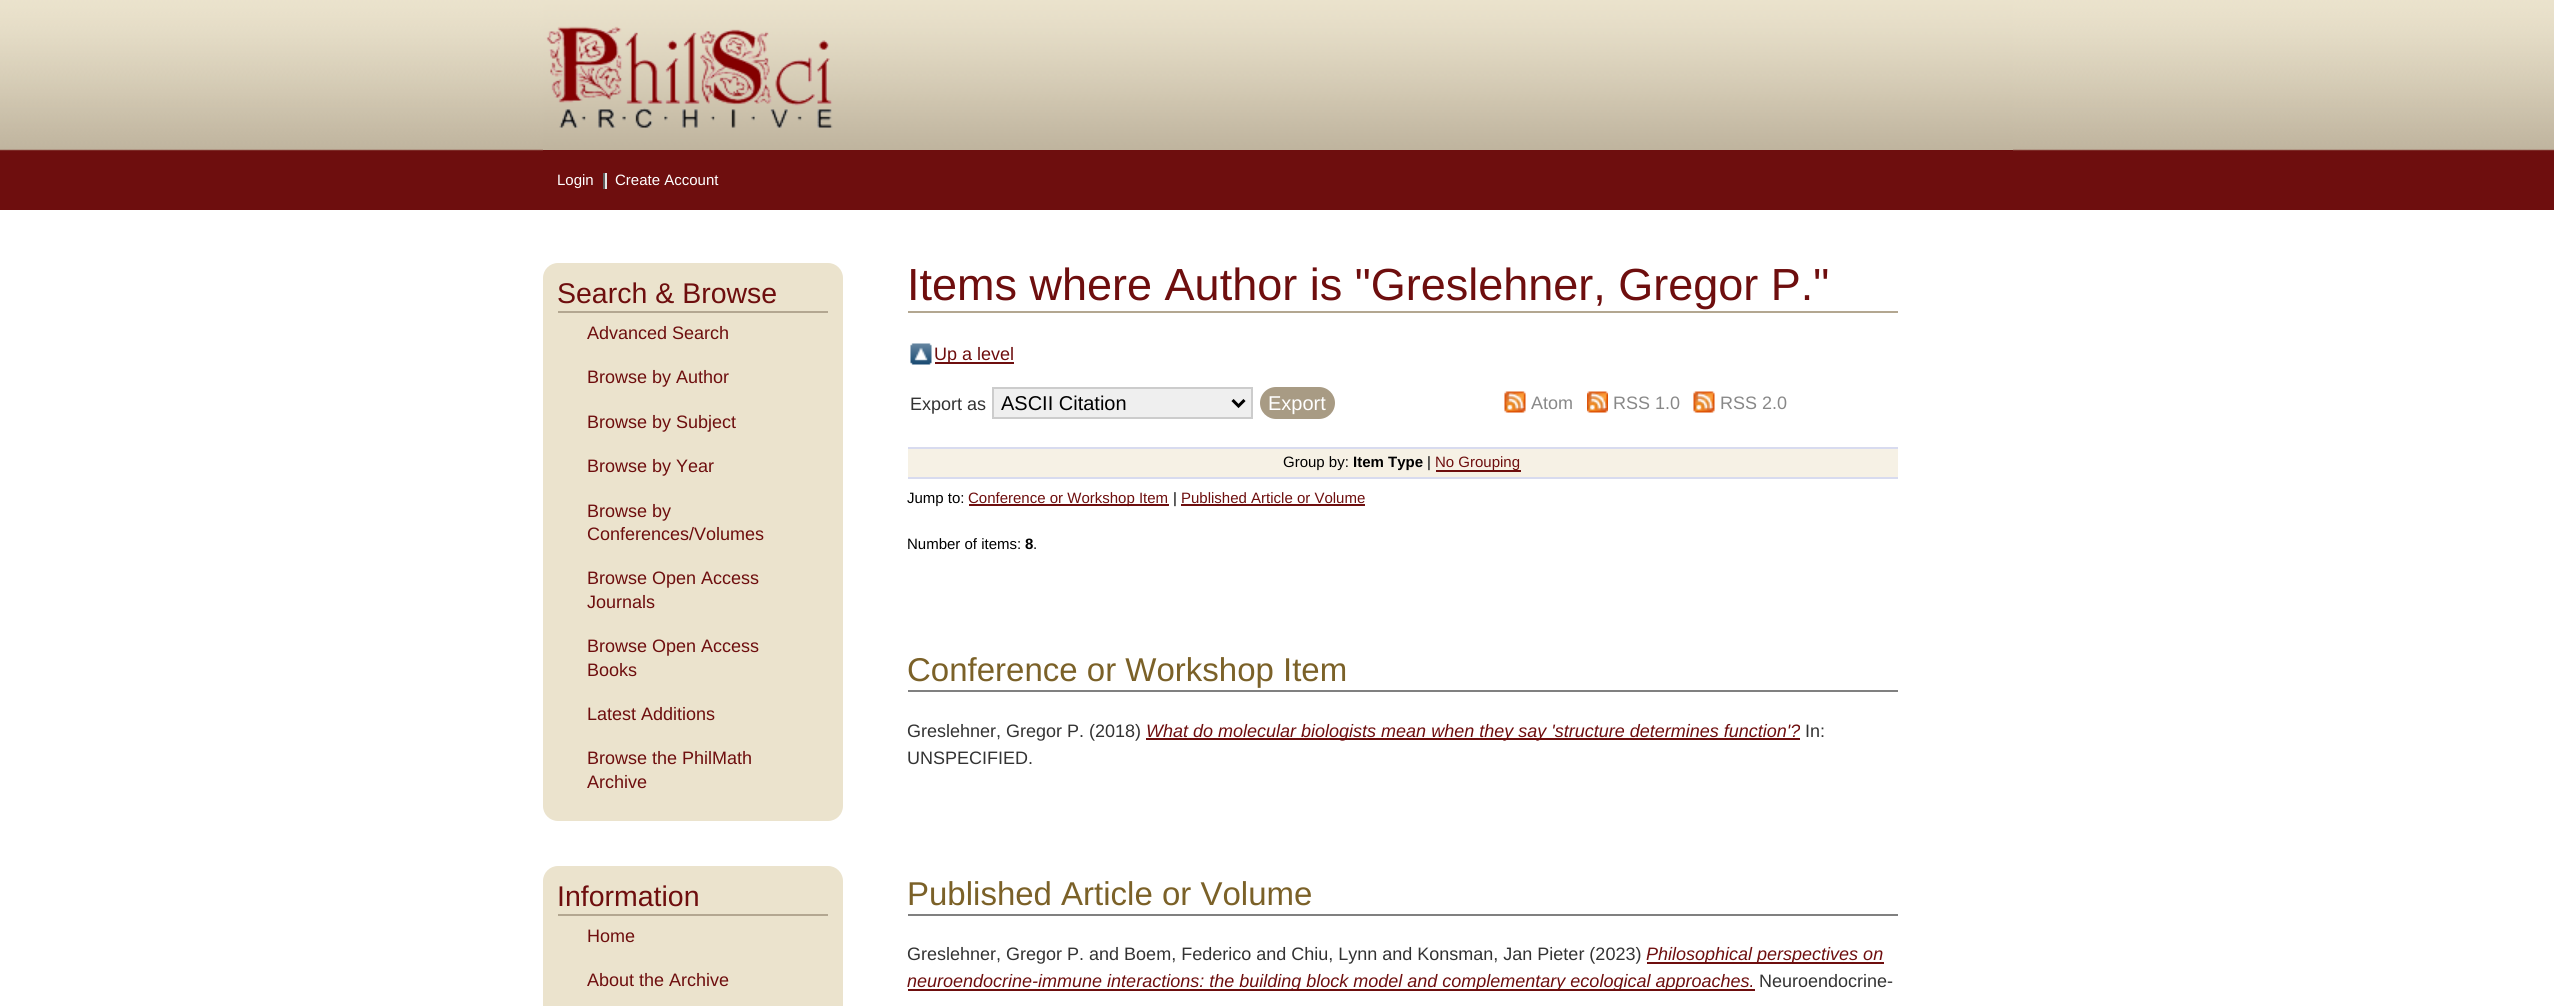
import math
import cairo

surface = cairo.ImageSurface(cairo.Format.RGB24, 2554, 1006)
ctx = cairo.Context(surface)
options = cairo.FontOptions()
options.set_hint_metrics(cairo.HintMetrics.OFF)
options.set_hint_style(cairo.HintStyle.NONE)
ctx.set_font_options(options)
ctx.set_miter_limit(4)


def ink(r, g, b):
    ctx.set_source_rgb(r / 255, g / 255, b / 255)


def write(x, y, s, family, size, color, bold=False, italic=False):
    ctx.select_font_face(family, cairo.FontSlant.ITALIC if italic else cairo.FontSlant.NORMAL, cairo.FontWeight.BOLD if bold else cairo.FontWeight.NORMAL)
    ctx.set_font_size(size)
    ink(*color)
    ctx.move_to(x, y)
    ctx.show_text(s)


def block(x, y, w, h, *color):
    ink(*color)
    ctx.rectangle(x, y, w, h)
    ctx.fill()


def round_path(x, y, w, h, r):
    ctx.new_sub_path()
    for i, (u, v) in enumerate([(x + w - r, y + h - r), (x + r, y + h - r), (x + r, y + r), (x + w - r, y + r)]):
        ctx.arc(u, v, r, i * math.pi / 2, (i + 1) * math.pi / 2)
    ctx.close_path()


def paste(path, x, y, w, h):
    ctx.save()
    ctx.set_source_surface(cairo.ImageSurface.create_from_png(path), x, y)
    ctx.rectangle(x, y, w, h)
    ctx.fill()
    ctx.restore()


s1 = dict(family="Liberation Sans", size=15, color=(255, 255, 255))
s2 = dict(family="Liberation Sans", size=28.5, color=(110, 14, 14))
s3 = dict(family="Liberation Sans", size=18, color=(110, 14, 14))
s4 = dict(family="Liberation Sans", size=45, color=(110, 14, 14))
s5 = dict(family="Liberation Sans", size=18, color=(51, 51, 51))
s6 = dict(family="Liberation Sans", size=20, color=(0, 0, 0))
s7 = dict(family="Liberation Sans", size=20, color=(255, 255, 255))
s8 = dict(family="Liberation Sans", size=18, color=(136, 136, 136))
s9 = dict(family="Liberation Sans", size=15, color=(0, 0, 0))
s10 = dict(family="Liberation Sans", size=15, color=(0, 0, 0), bold=True)
s11 = dict(family="Liberation Sans", size=15, color=(110, 14, 14))
s12 = dict(family="Liberation Sans", size=33, color=(123, 97, 40))
s13 = dict(family="Liberation Sans", size=18, color=(110, 14, 14), italic=True)

ink(255, 255, 255)
ctx.paint()
paste("pic1.png", 0, 0, 2554, 210)
block(543, 150, 1470, 1, 110, 14, 14)
paste("pic2.png", 543, 0, 1470, 150)
write(557, 185, "Login", **s1)
block(603, 173, 2, 16, 96, 96, 96)
write(615, 185, "Create Account", **s1)
block(605, 173, 2, 16, 232, 232, 232)
ink(235, 227, 205)
round_path(543, 263, 300, 558, 15)
ctx.fill()
block(558, 311, 270, 2, 179, 167, 145)
write(557, 303, "Search & Browse", **s2)
write(587, 339, "Advanced Search", **s3)
write(587, 383, "Browse by Author", **s3)
write(587, 428, "Browse by Subject", **s3)
write(587, 472, "Browse by Year", **s3)
write(587, 517, "Browse by", **s3)
write(587, 540, "Conferences/Volumes", **s3)
write(587, 584, "Browse Open Access", **s3)
write(587, 608, "Journals", **s3)
write(587, 652, "Browse Open Access", **s3)
write(587, 676, "Books", **s3)
write(587, 720, "Latest Additions", **s3)
write(587, 764, "Browse the PhilMath", **s3)
write(587, 788, "Archive", **s3)
ink(235, 227, 205)
round_path(543, 866, 300, 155, 15)
ctx.fill()
block(558, 914, 270, 2, 179, 167, 145)
write(557, 906, "Information", **s2)
write(587, 942, "Home", **s3)
write(587, 986, "About the Archive", **s3)
block(908, 311, 990, 2, 179, 167, 145)
write(907, 300, "Items where Author is \"Greslehner, Gregor P.\"", **s4)
paste("pic3.png", 910, 343, 22, 22)
block(935, 362, 79, 2, 110, 14, 14)
write(934, 360, "Up a level", **s3)
write(910, 410, "Export as", **s5)
ink(239, 239, 239)
ctx.rectangle(993, 388, 259, 30)
ctx.fill_preserve()
ink(204, 204, 204)
ctx.stroke()
ctx.new_path()
ctx.move_to(1232.5, 400)
ctx.line_to(1238.5, 406)
ctx.line_to(1244.5, 400)
ink(0, 0, 0)
ctx.set_line_width(3)
ctx.stroke()
write(1001, 410, "ASCII Citation", **s6)
ink(168, 155, 132)
round_path(1260, 387, 75, 32, 16)
ctx.fill()
write(1268, 410, "Export", **s7)
paste("pic4.png", 1504, 391, 22, 22)
write(1531, 409, "Atom", **s8)
paste("pic5.png", 1587, 391, 21, 22)
write(1613, 409, "RSS 1.0", **s8)
paste("pic6.png", 1693, 391, 22, 22)
write(1720, 409, "RSS 2.0", **s8)
block(908, 449, 990, 28, 246, 241, 229)
block(908, 447, 990, 2, 216, 219, 239)
block(908, 477, 990, 2, 216, 219, 239)
write(1283, 467, "Group by:", **s9)
write(1353, 467, "Item Type", **s10)
write(1427, 467, "|", **s9)
block(1436, 470, 85, 2, 110, 14, 14)
write(1435, 467, "No Grouping", **s11)
write(907, 503, "Jump to:", **s9)
block(969, 504, 200, 2, 110, 14, 14)
write(968, 503, "Conference or Workshop Item", **s11)
write(1173, 503, "|", **s9)
write(1181, 503, "Published Article or Volume", **s11)
block(1181, 504, 184, 2, 110, 14, 14)
write(907, 549, "Number of items:", **s9)
write(1025, 549, "8", **s10)
write(1033, 549, ".", **s9)
block(908, 690, 990, 2, 128, 128, 128)
write(907, 681, "Conference or Workshop Item", **s12)
write(907, 737, "Greslehner, Gregor P. (2018)", **s5)
block(1146, 738, 654, 2, 110, 14, 14)
write(1146, 737, "What do molecular biologists mean when they say 'structure determines function'?", **s13)
write(1805, 737, "In:", **s5)
write(907, 764, "UNSPECIFIED.", **s5)
block(908, 914, 990, 2, 128, 128, 128)
write(907, 905, "Published Article or Volume", **s12)
write(907, 960, "Greslehner, Gregor P. and Boem, Federico and Chiu, Lynn and Konsman, Jan Pieter (2023)", **s5)
block(1647, 962, 237, 2, 110, 14, 14)
write(1646, 960, "Philosophical perspectives on", **s13)
block(908, 989, 847, 2, 110, 14, 14)
write(907, 987, "neuroendocrine-immune interactions: the building block model and complementary ecological approaches.", **s13)
write(1759, 987, "Neuroendocrine-", **s5)
surface.write_to_png("screenshot.png")
